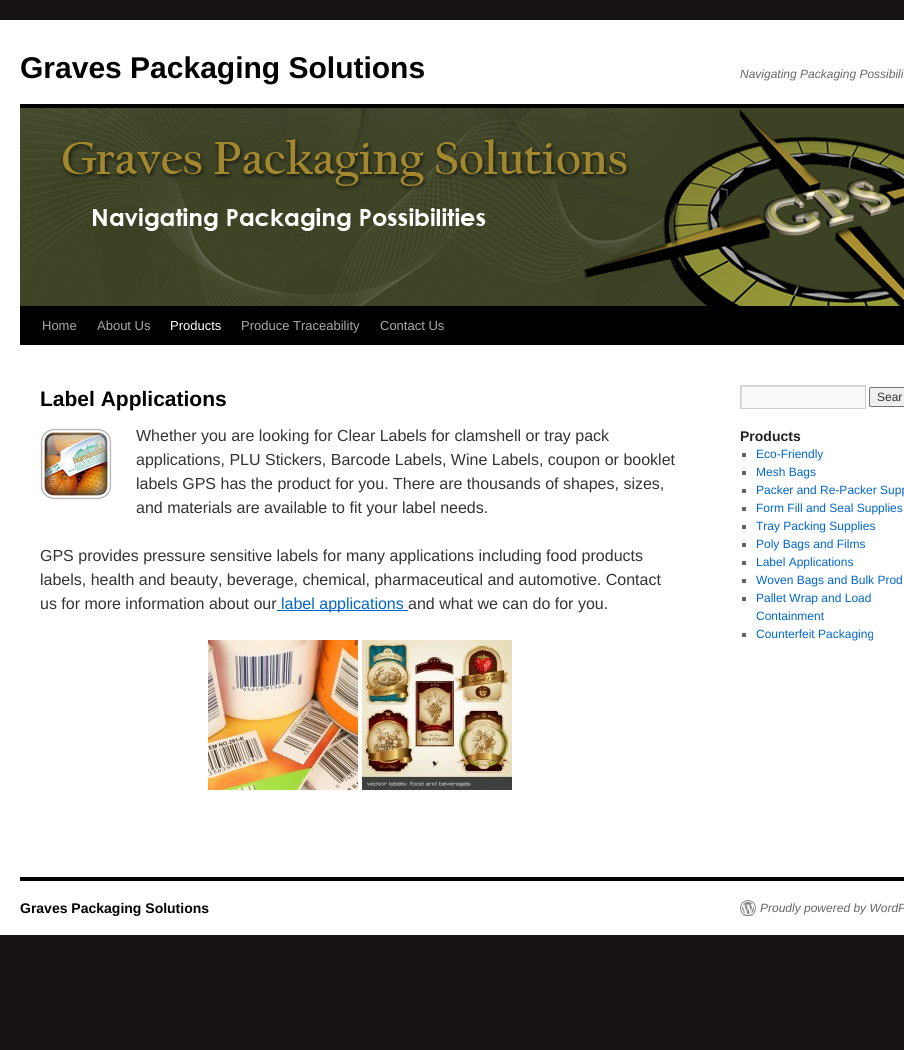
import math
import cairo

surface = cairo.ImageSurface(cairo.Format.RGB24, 904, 1050)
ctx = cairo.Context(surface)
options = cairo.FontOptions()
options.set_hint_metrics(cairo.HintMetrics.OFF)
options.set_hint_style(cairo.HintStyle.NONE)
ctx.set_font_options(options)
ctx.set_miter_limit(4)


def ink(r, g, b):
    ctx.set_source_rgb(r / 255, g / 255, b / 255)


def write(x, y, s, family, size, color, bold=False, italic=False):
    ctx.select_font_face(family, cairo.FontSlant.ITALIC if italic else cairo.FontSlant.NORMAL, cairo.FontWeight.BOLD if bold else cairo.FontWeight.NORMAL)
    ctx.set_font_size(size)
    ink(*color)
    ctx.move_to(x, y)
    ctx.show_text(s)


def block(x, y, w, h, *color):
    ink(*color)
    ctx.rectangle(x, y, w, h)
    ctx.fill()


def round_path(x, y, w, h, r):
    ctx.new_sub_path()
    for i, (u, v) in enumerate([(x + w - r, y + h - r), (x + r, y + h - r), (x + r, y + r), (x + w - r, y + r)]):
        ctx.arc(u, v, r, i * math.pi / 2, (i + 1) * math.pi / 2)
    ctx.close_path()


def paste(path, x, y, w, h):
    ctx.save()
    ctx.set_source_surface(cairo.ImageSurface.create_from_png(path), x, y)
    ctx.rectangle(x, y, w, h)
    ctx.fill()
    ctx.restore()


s1 = dict(family="Liberation Sans", size=30, color=(0, 0, 0), bold=True)
s2 = dict(family="Liberation Sans", size=12, color=(102, 102, 102), italic=True)
s3 = dict(family="Liberation Sans", size=13, color=(170, 170, 170))
s4 = dict(family="Liberation Sans", size=13, color=(255, 255, 255))
s5 = dict(family="Liberation Sans", size=21, color=(0, 0, 0), bold=True)
s6 = dict(family="Liberation Sans", size=16, color=(51, 51, 51))
s7 = dict(family="Liberation Sans", size=16, color=(0, 102, 204))
s8 = dict(family="Liberation Sans", size=12, color=(51, 51, 51))
s9 = dict(family="Liberation Sans", size=14, color=(34, 34, 34), bold=True)
s10 = dict(family="Liberation Sans", size=12, color=(0, 102, 204))
s11 = dict(family="Liberation Sans", size=14, color=(0, 0, 0), bold=True)

ink(23, 18, 18)
ctx.paint()
block(0, 20, 904, 915, 255, 255, 255)
write(20, 78, "Graves Packaging Solutions", **s1)
write(740, 78, "Navigating Packaging Possibili", **s2)
block(20, 104, 884, 4, 0, 0, 0)
block(20, 306, 884, 39, 0, 0, 0)
paste("pic1.png", 20, 108, 884, 198)
write(42, 330, "Home", **s3)
write(97, 330, "About Us", **s3)
write(170, 330, "Products", **s4)
write(241, 330, "Produce Traceability", **s3)
write(380, 330, "Contact Us", **s3)
write(40, 406, "Label Applications", **s5)
paste("pic2.png", 40, 428, 72, 72)
write(136, 441, "Whether you are looking for Clear Labels for clamshell or tray pack", **s6)
write(136, 465, "applications, PLU Stickers, Barcode Labels, Wine Labels, coupon or booklet", **s6)
write(136, 489, "labels GPS has the product for you. There are thousands of shapes, sizes,", **s6)
write(136, 513, "and materials are available to fit your label needs.", **s6)
write(40, 561, "GPS provides pressure sensitive labels for many applications including food products", **s6)
write(40, 585, "labels, health and beauty, beverage, chemical, pharmaceutical and automotive. Contact", **s6)
write(40, 609, "us for more information about our", **s6)
block(277, 610, 131, 1, 0, 102, 204)
write(281, 609, "label applications", **s7)
write(408, 609, "and what we can do for you.", **s6)
paste("pic3.png", 208, 640, 150, 150)
paste("pic4.png", 362, 640, 150, 150)
block(742, 387, 123, 21, 249, 249, 249)
ctx.save()
ctx.rectangle(741, 386, 124, 22)
ctx.clip()
ink(224, 224, 224)
ctx.set_fill_rule(cairo.FillRule.EVEN_ODD)
ctx.new_path()
ctx.move_to(642, 287)
ctx.line_to(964, 287)
ctx.line_to(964, 507)
ctx.line_to(642, 507)
ctx.close_path()
ctx.move_to(742, 387)
ctx.line_to(866, 387)
ctx.line_to(866, 409)
ctx.line_to(742, 409)
ctx.close_path()
ctx.fill()
ctx.restore()
ctx.rectangle(740.5, 385.5, 125, 23)
ink(204, 204, 204)
ctx.set_line_width(1)
ctx.stroke()
ink(239, 239, 239)
round_path(869.5, 387.5, 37, 19, 1.5)
ctx.fill_preserve()
ink(118, 118, 118)
ctx.stroke()
write(877, 401, "Sear", **s8)
write(740, 441, "Products", **s9)
block(742, 453, 4, 4, 102, 102, 102)
write(756, 458, "Eco-Friendly", **s10)
block(742, 471, 4, 4, 102, 102, 102)
write(756, 476, "Mesh Bags", **s10)
block(742, 489, 4, 4, 102, 102, 102)
write(756, 494, "Packer and Re-Packer Supp", **s10)
block(742, 507, 4, 4, 102, 102, 102)
write(756, 512, "Form Fill and Seal Supplies", **s10)
block(742, 525, 4, 4, 102, 102, 102)
write(756, 530, "Tray Packing Supplies", **s10)
block(742, 543, 4, 4, 102, 102, 102)
write(756, 548, "Poly Bags and Films", **s10)
block(742, 561, 4, 4, 102, 102, 102)
write(756, 566, "Label Applications", **s10)
block(742, 579, 4, 4, 102, 102, 102)
write(756, 584, "Woven Bags and Bulk Prod", **s10)
block(742, 597, 4, 4, 102, 102, 102)
write(756, 602, "Pallet Wrap and Load", **s10)
write(756, 620, "Containment", **s10)
block(742, 633, 4, 4, 102, 102, 102)
write(756, 638, "Counterfeit Packaging", **s10)
block(20, 877, 884, 4, 0, 0, 0)
write(20, 913, "Graves Packaging Solutions", **s11)
paste("pic5.png", 740, 900, 16, 16)
write(760, 912, "Proudly powered by WordP", **s2)
surface.write_to_png("screenshot.png")
